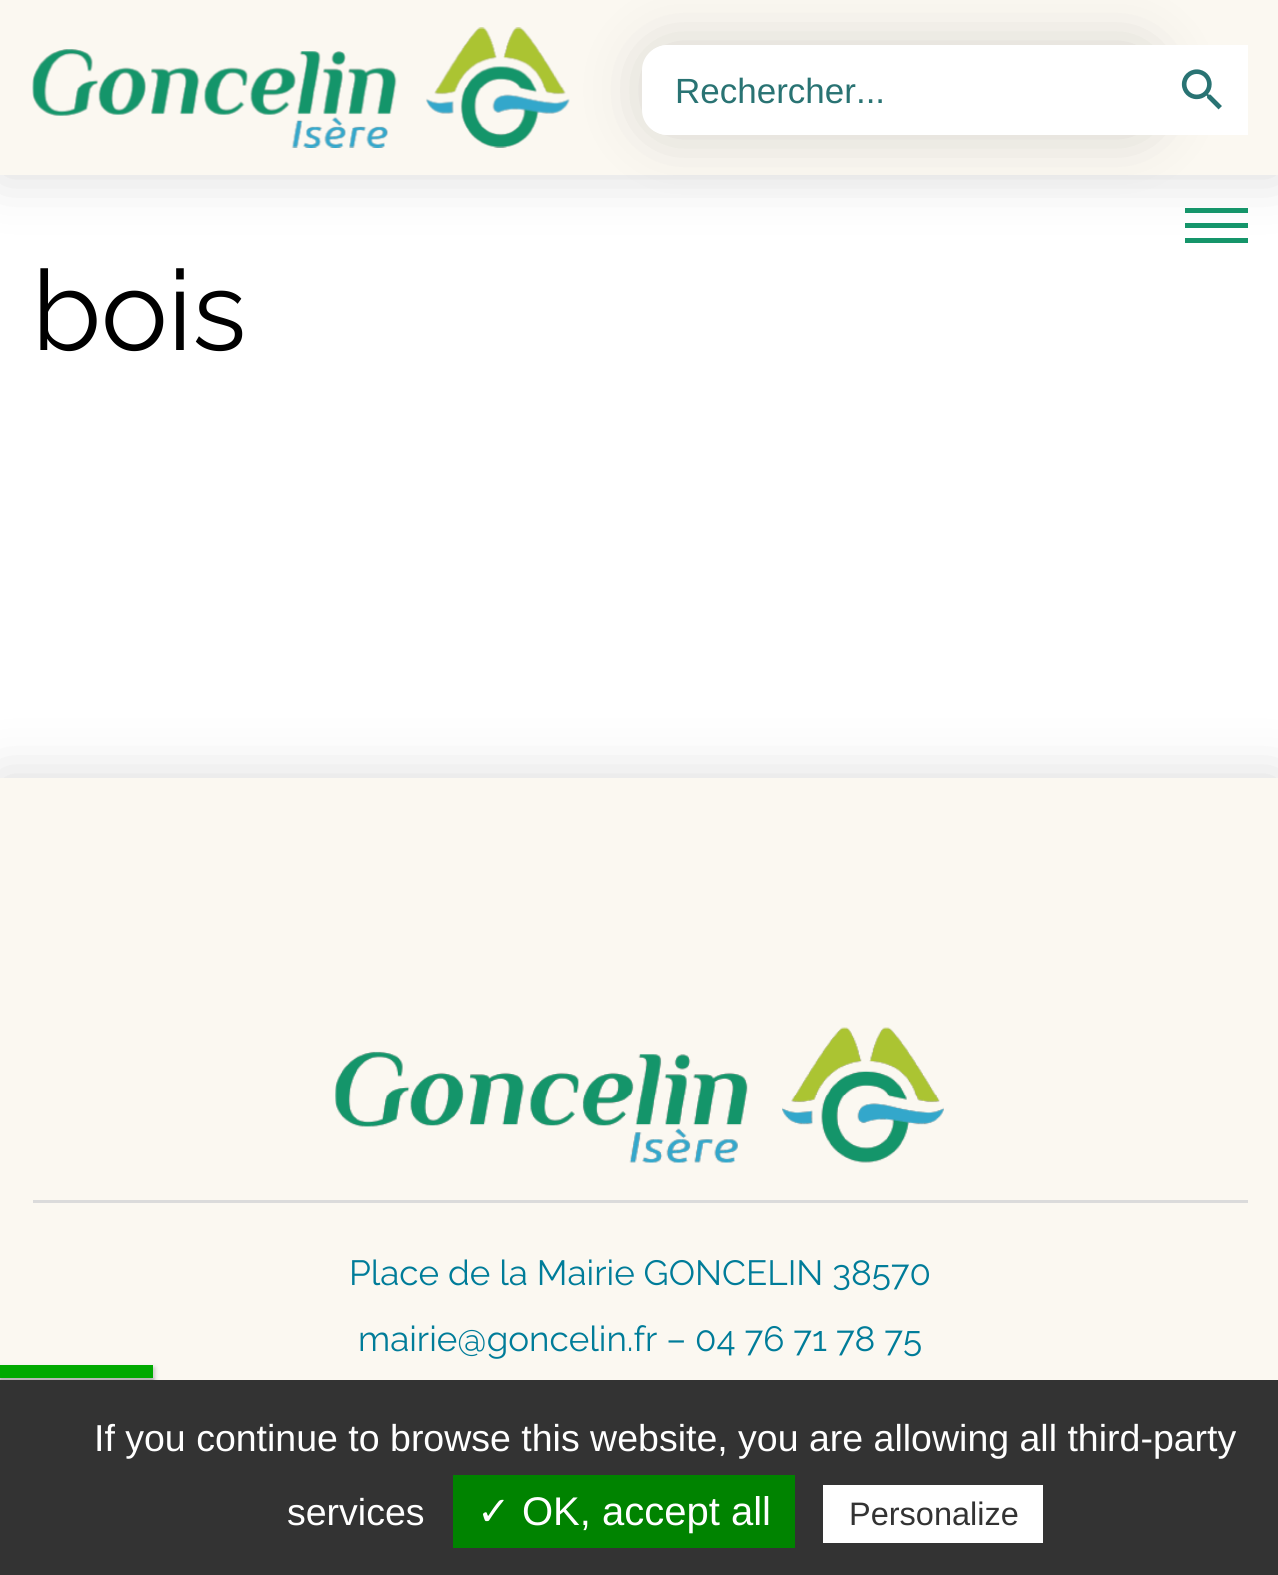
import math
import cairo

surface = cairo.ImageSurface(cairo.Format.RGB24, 1278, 1575)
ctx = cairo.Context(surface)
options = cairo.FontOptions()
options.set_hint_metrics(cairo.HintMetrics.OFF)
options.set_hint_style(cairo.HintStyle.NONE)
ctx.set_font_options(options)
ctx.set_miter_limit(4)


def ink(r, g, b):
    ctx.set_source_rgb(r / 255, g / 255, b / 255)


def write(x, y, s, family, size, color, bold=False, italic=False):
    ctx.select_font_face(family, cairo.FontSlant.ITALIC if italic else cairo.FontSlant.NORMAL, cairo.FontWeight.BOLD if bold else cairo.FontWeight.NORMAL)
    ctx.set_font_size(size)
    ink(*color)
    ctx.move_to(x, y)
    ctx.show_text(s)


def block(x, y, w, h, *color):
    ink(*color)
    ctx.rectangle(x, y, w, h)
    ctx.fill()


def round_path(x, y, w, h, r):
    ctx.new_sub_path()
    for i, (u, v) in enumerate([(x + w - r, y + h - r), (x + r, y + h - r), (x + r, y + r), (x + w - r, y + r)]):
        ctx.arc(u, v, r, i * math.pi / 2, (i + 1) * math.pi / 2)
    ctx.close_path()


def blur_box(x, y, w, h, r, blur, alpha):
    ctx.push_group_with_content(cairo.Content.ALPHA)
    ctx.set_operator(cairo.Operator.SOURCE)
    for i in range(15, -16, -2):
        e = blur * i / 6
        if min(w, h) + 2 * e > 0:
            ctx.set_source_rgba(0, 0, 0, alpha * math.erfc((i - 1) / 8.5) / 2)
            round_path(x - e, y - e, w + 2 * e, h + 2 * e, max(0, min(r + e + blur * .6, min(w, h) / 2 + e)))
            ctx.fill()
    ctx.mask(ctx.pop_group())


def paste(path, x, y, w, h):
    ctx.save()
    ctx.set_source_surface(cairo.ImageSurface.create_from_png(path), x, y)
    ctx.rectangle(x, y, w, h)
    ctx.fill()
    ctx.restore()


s1 = dict(family="Liberation Sans", size=35, color=(41, 115, 115))
s2 = dict(family="Raleway", size=112, color=(0, 0, 0))
s3 = dict(family="Raleway", size=35, color=(0, 124, 153))
s4 = dict(family="Liberation Sans", size=37.5, color=(255, 255, 255))
s5 = dict(family="DejaVu Sans", size=40, color=(255, 255, 255))
s6 = dict(family="Liberation Sans", size=40, color=(255, 255, 255))
s7 = dict(family="Liberation Sans", size=32.5, color=(51, 51, 51))

ink(255, 255, 255)
ctx.paint()
ink(119, 119, 119)
blur_box(0, 0, 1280, 175, 0, 27.5, 0.28)
block(0, 0, 1278, 175, 251, 248, 241)
paste("pic1.png", 32, 27, 538, 121)
ink(119, 119, 119)
blur_box(643, 45, 515, 90, 25, 27.5, 0.28)
ink(255, 255, 255)
ctx.new_path()
ctx.move_to(668, 45)
ctx.line_to(1158, 45)
ctx.line_to(1158, 135)
ctx.line_to(668, 135)
ctx.curve_to(654, 135, 643, 124, 643, 110)
ctx.line_to(643, 70)
ctx.curve_to(643, 56, 654, 45, 668, 45)
ctx.close_path()
ctx.fill()
ctx.set_fill_rule(cairo.FillRule.EVEN_ODD)
ctx.new_path()
ctx.move_to(668, 45)
ctx.line_to(1158, 45)
ctx.line_to(1158, 135)
ctx.line_to(668, 135)
ctx.curve_to(654, 135, 642, 124, 642, 110)
ctx.line_to(642, 70)
ctx.curve_to(642, 56, 654, 45, 668, 45)
ctx.close_path()
ctx.move_to(668, 48)
ctx.line_to(1158, 48)
ctx.line_to(1158, 132)
ctx.line_to(668, 132)
ctx.curve_to(655, 132, 645, 122, 645, 110)
ctx.line_to(645, 70)
ctx.curve_to(645, 58, 655, 48, 668, 48)
ctx.close_path()
ctx.fill()
write(675, 103, "Rechercher...", **s1)
block(1158, 45, 90, 90, 255, 255, 255)
paste("pic2.png", 1181, 69, 41, 41)
block(1185, 223, 63, 5, 21, 149, 106)
block(1185, 208, 63, 5, 21, 149, 106)
block(1185, 238, 63, 5, 21, 149, 106)
write(32, 350, "bois", **s2)
ink(119, 119, 119)
blur_box(0, 778, 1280, 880, 0, 27.5, 0.28)
block(0, 778, 1278, 602, 251, 248, 241)
paste("pic3.png", 335, 1027, 609, 136)
block(33, 1200, 1215, 3, 219, 219, 219)
write(349, 1285, "Place de la Mairie GONCELIN 38570", **s3)
write(358, 1351, "mairie@goncelin.fr – 04 76 71 78 75", **s3)
ink(85, 85, 85)
blur_box(0, 1368, 153, 12, 0, 2.5, 1)
ink(255, 255, 255)
blur_box(0, 1365, 153, 13, 0, 2.5, 1)
block(0, 1365, 153, 13, 0, 170, 0)
block(0, 1380, 1278, 195, 51, 51, 51)
write(94, 1451, "If you continue to browse this website, you are allowing all third-party", **s4)
write(287, 1525, "services", **s4)
block(453, 1475, 342, 73, 0, 131, 0)
write(477, 1525, "✓", **s5)
write(522, 1525, "OK, accept all", **s6)
block(823, 1485, 220, 58, 255, 255, 255)
write(849, 1525, "Personalize", **s7)
surface.write_to_png("screenshot.png")
